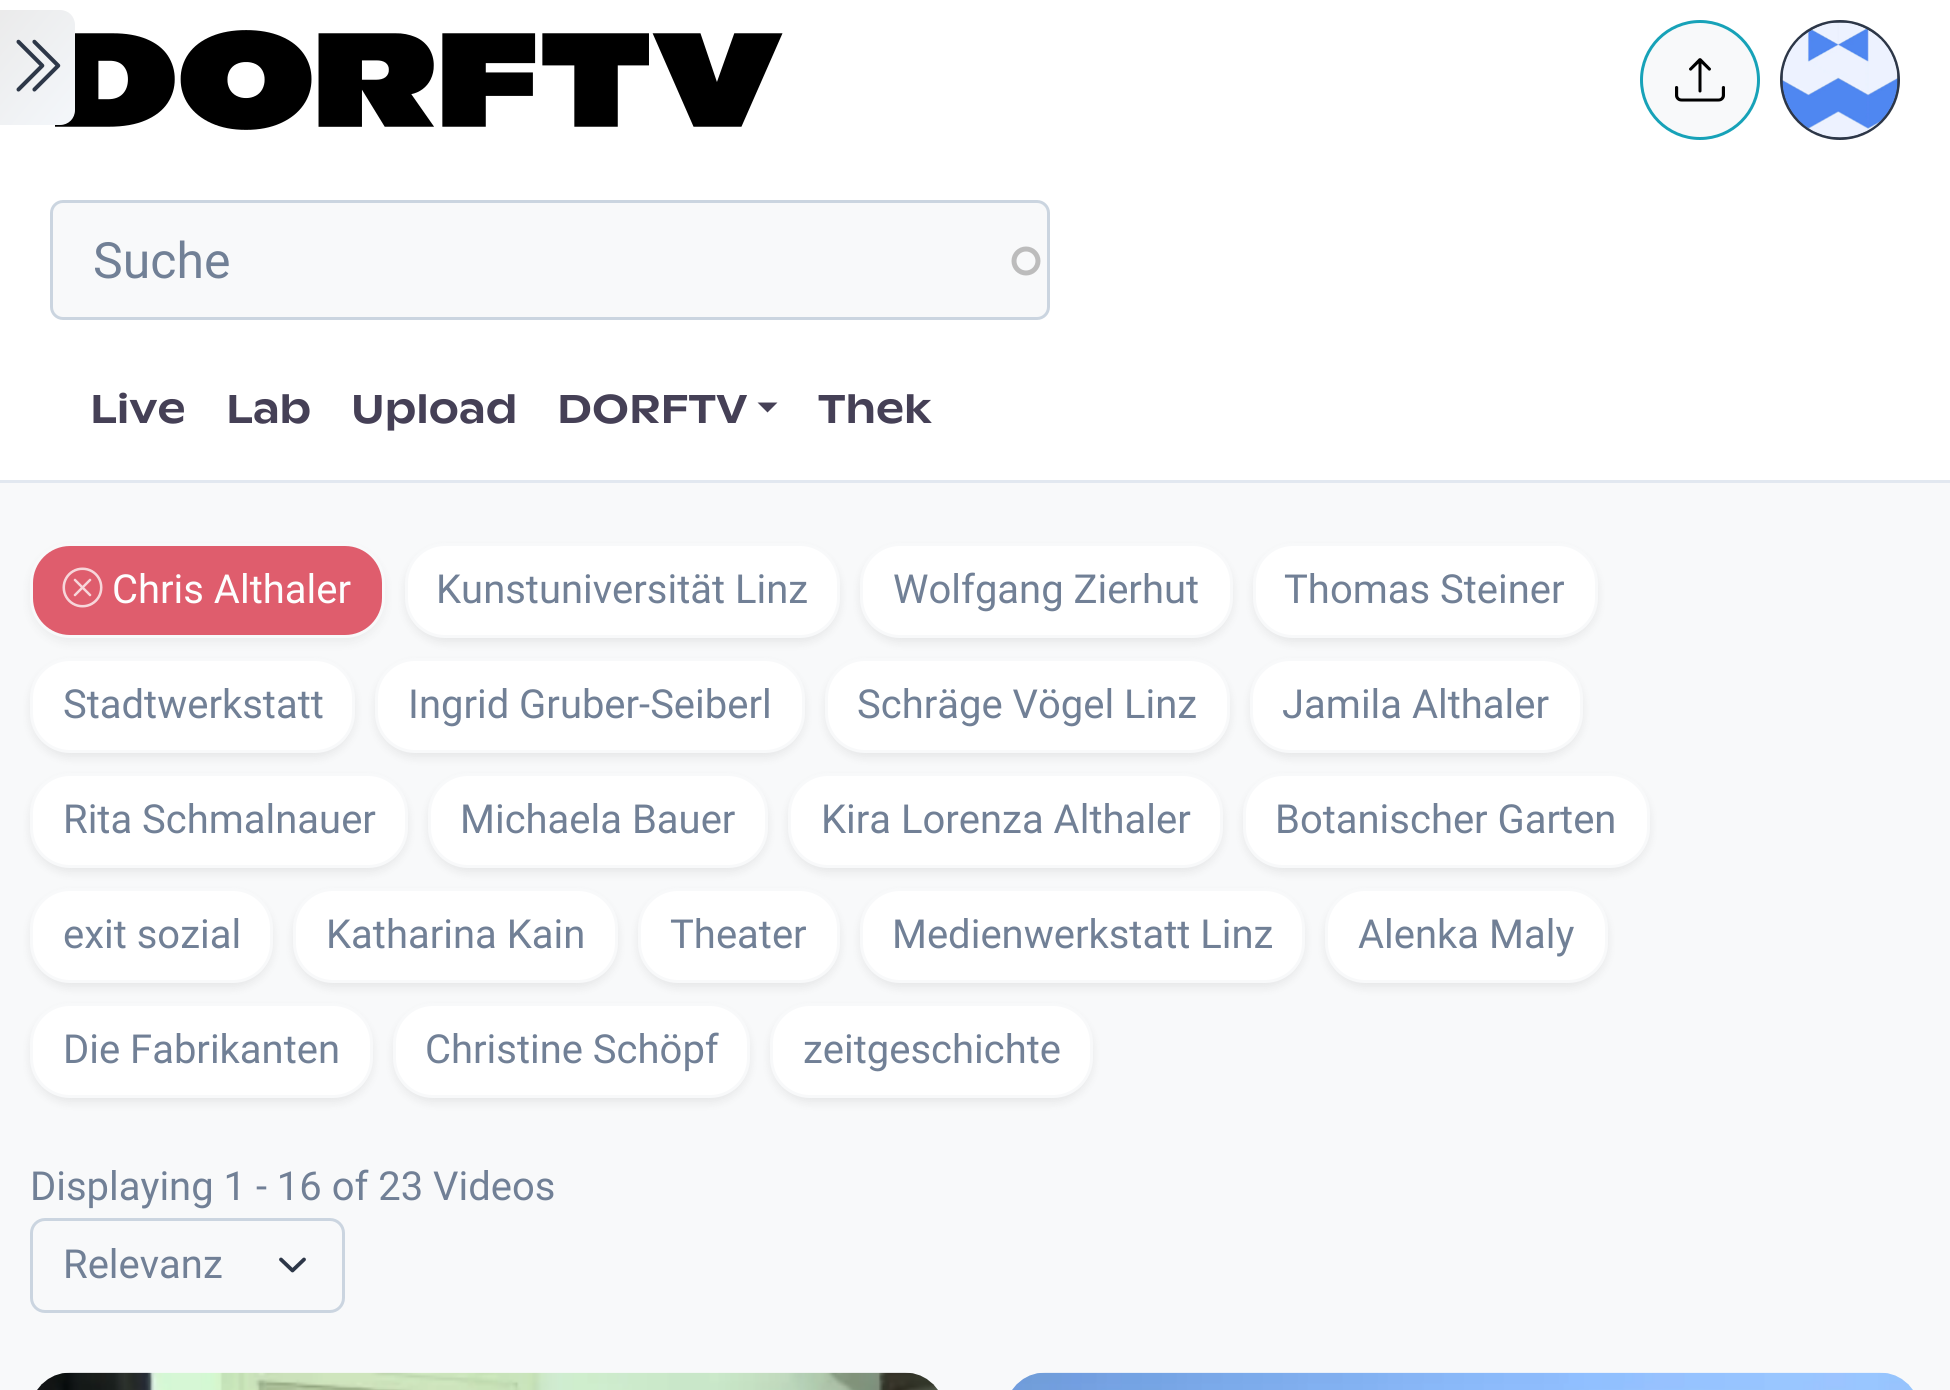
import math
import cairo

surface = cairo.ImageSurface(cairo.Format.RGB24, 1950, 1390)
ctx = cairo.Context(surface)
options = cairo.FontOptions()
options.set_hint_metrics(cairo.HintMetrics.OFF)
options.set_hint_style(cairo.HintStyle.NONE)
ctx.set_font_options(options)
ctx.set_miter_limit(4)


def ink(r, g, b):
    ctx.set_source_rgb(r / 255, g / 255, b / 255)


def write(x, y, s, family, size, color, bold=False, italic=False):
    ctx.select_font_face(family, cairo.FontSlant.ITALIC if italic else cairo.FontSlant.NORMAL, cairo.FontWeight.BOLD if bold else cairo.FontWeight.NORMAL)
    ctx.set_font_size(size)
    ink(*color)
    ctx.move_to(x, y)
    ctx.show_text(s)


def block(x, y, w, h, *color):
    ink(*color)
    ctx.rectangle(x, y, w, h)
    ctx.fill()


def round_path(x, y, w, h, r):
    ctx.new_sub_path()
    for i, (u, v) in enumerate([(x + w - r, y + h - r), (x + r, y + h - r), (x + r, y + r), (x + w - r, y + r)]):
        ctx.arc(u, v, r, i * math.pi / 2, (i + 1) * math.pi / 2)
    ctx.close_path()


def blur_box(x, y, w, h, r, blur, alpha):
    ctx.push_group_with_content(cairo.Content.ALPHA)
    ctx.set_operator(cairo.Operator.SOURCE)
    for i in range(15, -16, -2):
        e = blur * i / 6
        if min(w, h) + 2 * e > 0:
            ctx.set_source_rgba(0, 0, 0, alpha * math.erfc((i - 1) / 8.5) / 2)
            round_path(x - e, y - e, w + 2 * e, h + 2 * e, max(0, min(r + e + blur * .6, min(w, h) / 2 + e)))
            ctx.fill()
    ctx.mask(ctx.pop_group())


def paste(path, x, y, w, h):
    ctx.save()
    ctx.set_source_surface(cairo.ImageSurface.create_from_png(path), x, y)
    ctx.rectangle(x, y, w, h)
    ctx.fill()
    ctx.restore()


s1 = dict(family="Roboto", size=50, color=(113, 128, 150))
s2 = dict(family="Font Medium", size=40, color=(69, 64, 86))
s3 = dict(family="Roboto", size=40, color=(253, 254, 254))
s4 = dict(family="Roboto", size=40, color=(113, 128, 150))

ink(248, 249, 250)
ctx.paint()
block(0, 0, 1950, 480, 255, 255, 255)
paste("pic2.png", 55, 30, 728, 100)
gradient = cairo.LinearGradient(86, 112, -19, 23)
gradient.add_color_stop_rgba(0, 0.957, 0.969, 0.984, 1)
gradient.add_color_stop_rgba(1, 0.918, 0.918, 0.918, 1)
ctx.set_source(gradient)
ctx.new_path()
ctx.move_to(-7, 10)
ctx.line_to(60, 10)
ctx.curve_to(68.5, 10, 75, 16.5, 75, 25)
ctx.line_to(75, 110)
ctx.curve_to(75, 118.5, 68.5, 125, 60, 125)
ctx.line_to(-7, 125)
ctx.close_path()
ctx.fill()
paste("pic1.png", 16, 39, 45, 53)
ink(248, 249, 250)
ctx.arc(1700, 80, 58.5, 0, 2 * math.pi)
ctx.fill_preserve()
ink(23, 162, 184)
ctx.set_line_width(3)
ctx.stroke()
paste("pic3.png", 1675, 58, 50, 44)
ctx.arc(1840, 80, 58.5, 0, 2 * math.pi)
ink(45, 55, 72)
ctx.stroke()
paste("pic4.png", 1782, 22, 116, 116)
block(0, 480, 1950, 3, 226, 232, 240)
ink(248, 249, 250)
round_path(53, 203, 995, 115, 10)
ctx.fill()
ctx.arc(1026, 261, 12, 0, 2 * math.pi)
ink(188, 188, 188)
ctx.set_line_width(5)
ctx.stroke()
round_path(51.5, 201.5, 997, 117, 11.5)
ink(203, 213, 224)
ctx.set_line_width(3)
ctx.stroke()
write(93, 278, "Suche", **s1)
write(90, 423, "Live", **s2)
write(226, 423, "Lab", **s2)
write(351, 423, "Upload", **s2)
write(557, 423, "DORFTV", **s2)
ctx.new_path()
ctx.move_to(757.5, 402.5)
ctx.line_to(777.5, 402.5)
ctx.line_to(767.5, 412.5)
ctx.close_path()
ctx.fill()
write(818, 423, "Thek", **s2)
ink(0, 0, 0)
blur_box(30, 663, 325, 95, 40, 5, 0.07)
ink(255, 255, 255)
round_path(31.5, 659.5, 322, 92, 38.5)
ctx.fill_preserve()
ink(248, 249, 250)
ctx.stroke()
ink(0, 0, 0)
blur_box(405, 548, 435, 95, 40, 5, 0.07)
blur_box(375, 663, 430, 95, 40, 5, 0.07)
ink(255, 255, 255)
round_path(376.5, 659.5, 427, 92, 38.5)
ctx.fill_preserve()
ink(248, 249, 250)
ctx.stroke()
ink(62, 62, 62)
blur_box(30, 548, 355, 95, 40, 5, 0.07)
ink(223, 93, 109)
round_path(31.5, 544.5, 352, 92, 38.5)
ctx.fill_preserve()
ink(248, 249, 250)
ctx.stroke()
paste("pic5.png", 62, 567, 41, 41)
write(112, 603, "Chris Althaler", **s3)
ink(255, 255, 255)
round_path(406.5, 544.5, 432, 92, 38.5)
ctx.fill_preserve()
ink(248, 249, 250)
ctx.stroke()
write(436, 603, "Kunstuniversität Linz", **s4)
ink(0, 0, 0)
blur_box(860, 548, 373, 95, 40, 5, 0.07)
ink(255, 255, 255)
round_path(861.5, 544.5, 370, 92, 38.5)
ctx.fill_preserve()
ink(248, 249, 250)
ctx.stroke()
write(893, 603, "Wolfgang Zierhut", **s4)
ink(0, 0, 0)
blur_box(1253, 548, 345, 95, 40, 5, 0.07)
ink(255, 255, 255)
round_path(1254.5, 544.5, 342, 92, 38.5)
ctx.fill_preserve()
ink(248, 249, 250)
ctx.stroke()
write(1284, 603, "Thomas Steiner", **s4)
write(63, 718, "Stadtwerkstatt", **s4)
write(408, 718, "Ingrid Gruber-Seiberl", **s4)
ink(0, 0, 0)
blur_box(825, 663, 405, 95, 40, 5, 0.07)
ink(255, 255, 255)
round_path(826.5, 659.5, 402, 92, 38.5)
ctx.fill_preserve()
ink(248, 249, 250)
ctx.stroke()
write(857, 718, "Schräge Vögel Linz", **s4)
ink(0, 0, 0)
blur_box(1250, 663, 333, 95, 40, 5, 0.07)
ink(255, 255, 255)
round_path(1251.5, 659.5, 330, 92, 38.5)
ctx.fill_preserve()
ink(248, 249, 250)
ctx.stroke()
write(1282, 718, "Jamila Althaler", **s4)
ink(0, 0, 0)
blur_box(30, 778, 378, 95, 40, 5, 0.07)
ink(255, 255, 255)
round_path(31.5, 774.5, 375, 92, 38.5)
ctx.fill_preserve()
ink(248, 249, 250)
ctx.stroke()
write(63, 833, "Rita Schmalnauer", **s4)
ink(0, 0, 0)
blur_box(428, 778, 340, 95, 40, 5, 0.07)
ink(255, 255, 255)
round_path(429.5, 774.5, 337, 92, 38.5)
ctx.fill_preserve()
ink(248, 249, 250)
ctx.stroke()
write(460, 833, "Michaela Bauer", **s4)
ink(0, 0, 0)
blur_box(788, 778, 435, 95, 40, 5, 0.07)
ink(255, 255, 255)
round_path(789.5, 774.5, 432, 92, 38.5)
ctx.fill_preserve()
ink(248, 249, 250)
ctx.stroke()
write(821, 833, "Kira Lorenza Althaler", **s4)
ink(0, 0, 0)
blur_box(1243, 778, 407, 95, 40, 5, 0.07)
ink(255, 255, 255)
round_path(1244.5, 774.5, 404, 92, 38.5)
ctx.fill_preserve()
ink(248, 249, 250)
ctx.stroke()
write(1275, 833, "Botanischer Garten", **s4)
ink(0, 0, 0)
blur_box(30, 893, 243, 95, 40, 5, 0.07)
ink(255, 255, 255)
round_path(31.5, 889.5, 240, 92, 38.5)
ctx.fill_preserve()
ink(248, 249, 250)
ctx.stroke()
write(63, 948, "exit sozial", **s4)
ink(0, 0, 0)
blur_box(293, 893, 325, 95, 40, 5, 0.07)
ink(255, 255, 255)
round_path(294.5, 889.5, 322, 92, 38.5)
ctx.fill_preserve()
ink(248, 249, 250)
ctx.stroke()
write(326, 948, "Katharina Kain", **s4)
ink(0, 0, 0)
blur_box(638, 893, 202, 95, 40, 5, 0.07)
ink(255, 255, 255)
round_path(639.5, 889.5, 199, 92, 38.5)
ctx.fill_preserve()
ink(248, 249, 250)
ctx.stroke()
write(670, 948, "Theater", **s4)
ink(0, 0, 0)
blur_box(860, 893, 445, 95, 40, 5, 0.07)
ink(255, 255, 255)
round_path(861.5, 889.5, 442, 92, 38.5)
ctx.fill_preserve()
ink(248, 249, 250)
ctx.stroke()
write(892, 948, "Medienwerkstatt Linz", **s4)
ink(0, 0, 0)
blur_box(1325, 893, 283, 95, 40, 5, 0.07)
ink(255, 255, 255)
round_path(1326.5, 889.5, 280, 92, 38.5)
ctx.fill_preserve()
ink(248, 249, 250)
ctx.stroke()
write(1358, 948, "Alenka Maly", **s4)
ink(0, 0, 0)
blur_box(30, 1008, 343, 95, 40, 5, 0.07)
ink(255, 255, 255)
round_path(31.5, 1004.5, 340, 92, 38.5)
ctx.fill_preserve()
ink(248, 249, 250)
ctx.stroke()
write(63, 1063, "Die Fabrikanten", **s4)
ink(0, 0, 0)
blur_box(393, 1008, 357, 95, 40, 5, 0.07)
ink(255, 255, 255)
round_path(394.5, 1004.5, 354, 92, 38.5)
ctx.fill_preserve()
ink(248, 249, 250)
ctx.stroke()
write(425, 1063, "Christine Schöpf", **s4)
ink(0, 0, 0)
blur_box(770, 1008, 323, 95, 40, 5, 0.07)
ink(255, 255, 255)
round_path(771.5, 1004.5, 320, 92, 38.5)
ctx.fill_preserve()
ink(248, 249, 250)
ctx.stroke()
write(803, 1063, "zeitgeschichte", **s4)
write(30, 1200, "Displaying 1 - 16 of 23 Videos", **s4)
ctx.new_path()
ctx.move_to(281, 1259.5)
ctx.line_to(292.5, 1270.5)
ctx.line_to(304, 1259.5)
ink(45, 55, 72)
ctx.set_line_width(3.8)
ctx.set_line_cap(cairo.LineCap.ROUND)
ctx.set_line_join(cairo.LineJoin.ROUND)
ctx.stroke()
round_path(31.5, 1219.5, 312, 92, 13.5)
ink(203, 213, 224)
ctx.set_line_width(3)
ctx.set_line_cap(cairo.LineCap.BUTT)
ctx.set_line_join(cairo.LineJoin.MITER)
ctx.stroke()
write(63, 1278, "Relevanz", **s4)
paste("pic6.png", 37, 1372, 901, 18)
paste("pic7.png", 1012, 1372, 901, 18)
surface.write_to_png("screenshot.png")
